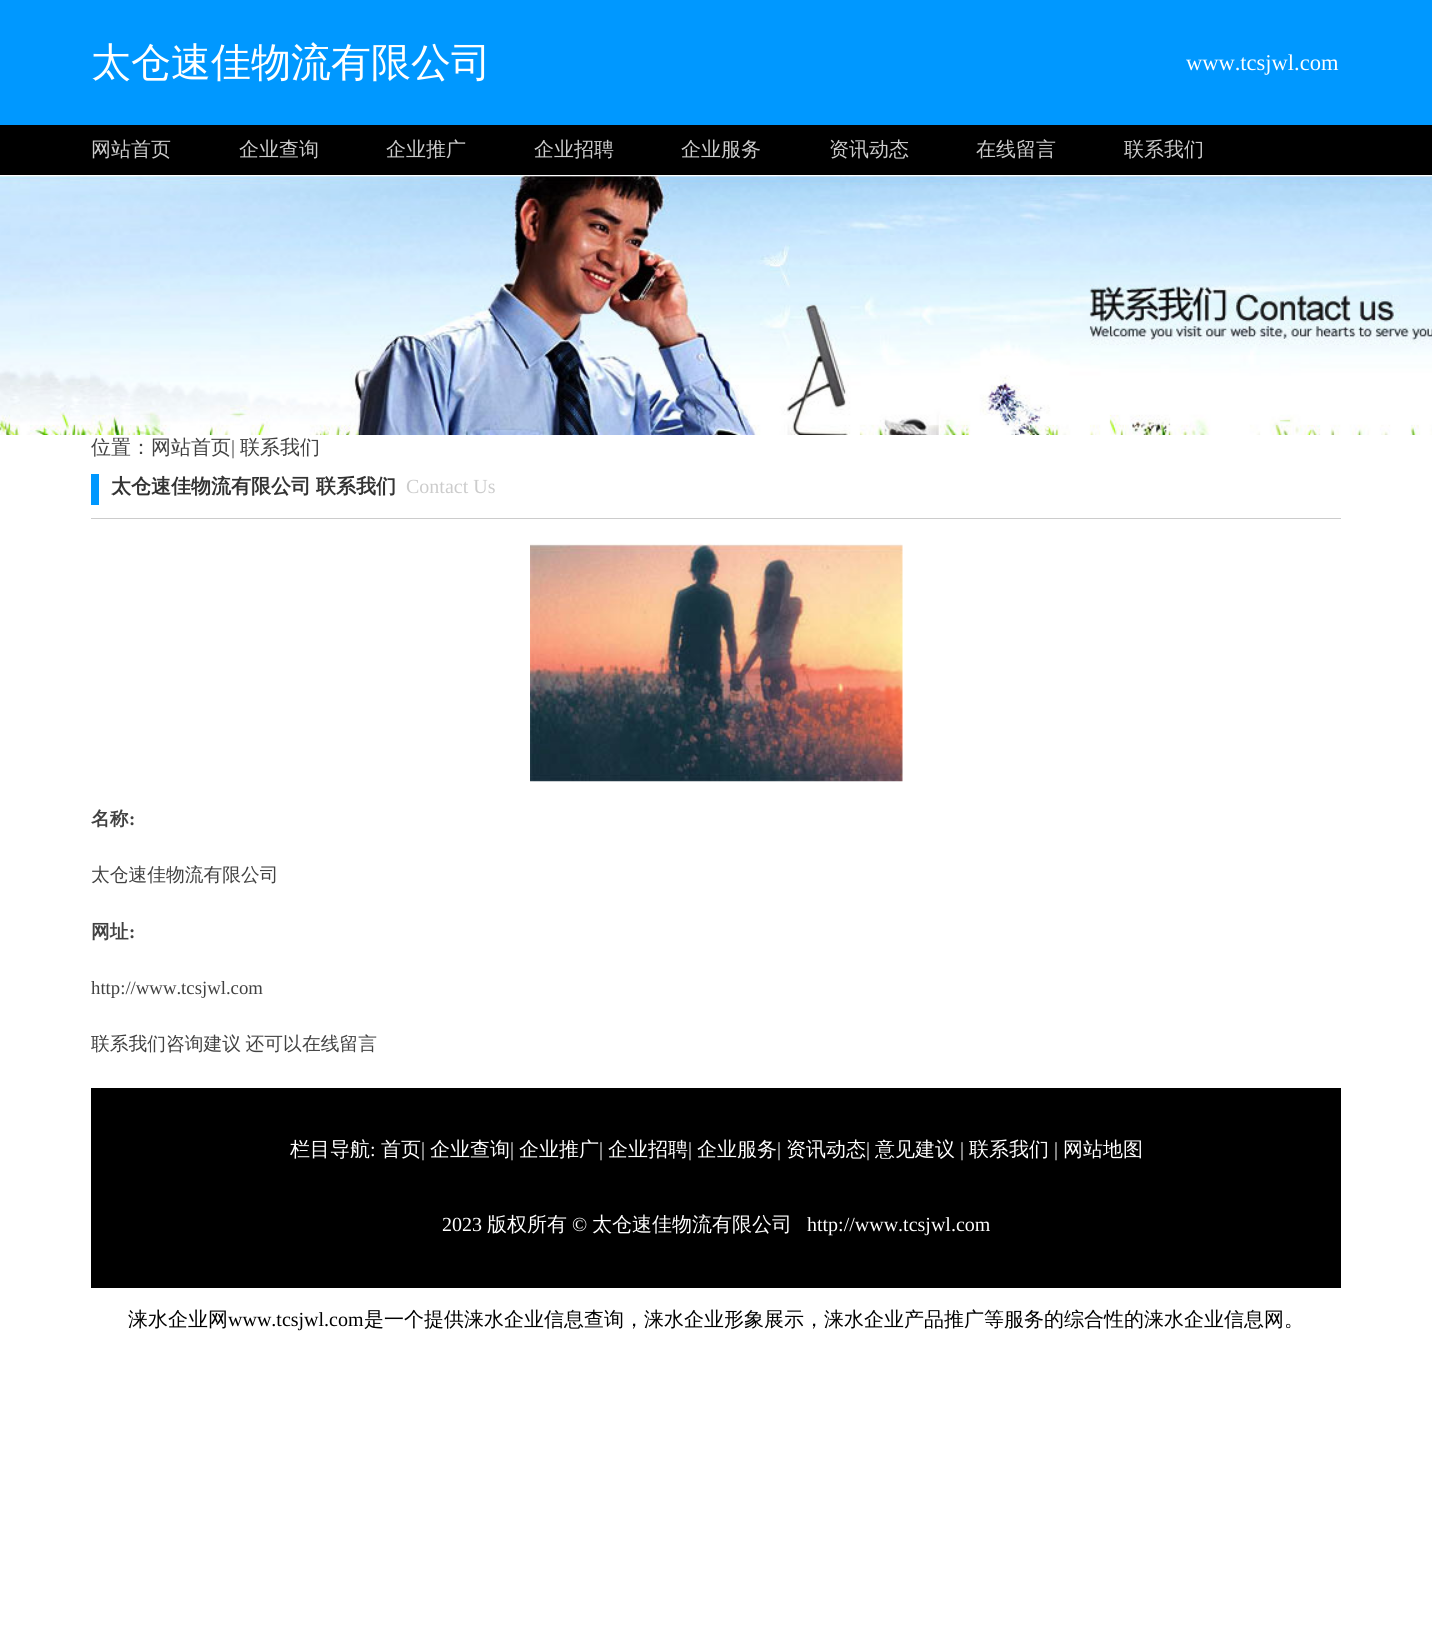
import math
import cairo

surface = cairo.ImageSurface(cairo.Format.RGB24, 1432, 1645)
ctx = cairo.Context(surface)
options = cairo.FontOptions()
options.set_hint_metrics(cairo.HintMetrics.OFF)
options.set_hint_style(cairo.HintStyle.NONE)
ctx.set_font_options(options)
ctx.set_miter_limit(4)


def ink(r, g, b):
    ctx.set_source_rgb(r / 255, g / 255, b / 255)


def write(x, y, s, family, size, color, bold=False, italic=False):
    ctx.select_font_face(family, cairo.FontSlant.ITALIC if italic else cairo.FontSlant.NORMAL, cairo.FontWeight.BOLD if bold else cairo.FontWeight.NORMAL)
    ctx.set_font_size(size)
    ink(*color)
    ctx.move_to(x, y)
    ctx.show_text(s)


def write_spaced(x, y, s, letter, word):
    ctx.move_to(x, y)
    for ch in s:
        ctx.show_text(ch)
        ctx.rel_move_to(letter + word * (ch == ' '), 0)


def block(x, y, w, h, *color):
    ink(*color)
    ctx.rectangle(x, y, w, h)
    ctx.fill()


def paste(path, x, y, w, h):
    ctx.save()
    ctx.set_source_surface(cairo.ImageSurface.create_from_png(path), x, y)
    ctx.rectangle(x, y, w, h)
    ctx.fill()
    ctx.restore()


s1 = dict(family="WenQuanYi Zen Hei Medium", size=40, color=(255, 255, 255))
s2 = dict(family="Liberation Serif", size=22.5, color=(255, 255, 255))
s3 = dict(family="WenQuanYi Zen Hei Medium", size=20, color=(204, 204, 204))
s4 = dict(family="WenQuanYi Zen Hei Medium", size=20, color=(65, 65, 65))
s5 = dict(family="Liberation Serif", size=20, color=(65, 65, 65))
s6 = dict(family="WenQuanYi Zen Hei", size=20, color=(51, 51, 51), bold=True)
s7 = dict(family="Liberation Serif", size=20, color=(204, 204, 204))
s8 = dict(family="WenQuanYi Zen Hei", size=18.75, color=(65, 65, 65), bold=True)
s9 = dict(family="Liberation Serif", size=18.75, color=(65, 65, 65), bold=True)
s10 = dict(family="WenQuanYi Zen Hei Medium", size=18.75, color=(65, 65, 65))
s11 = dict(family="Liberation Serif", size=18.75, color=(65, 65, 65))
s12 = dict(family="WenQuanYi Zen Hei Medium", size=20, color=(255, 255, 255))
s13 = dict(family="Liberation Serif", size=20, color=(255, 255, 255))
s14 = dict(family="WenQuanYi Zen Hei Medium", size=20, color=(0, 0, 0))
s15 = dict(family="Liberation Serif", size=20, color=(0, 0, 0))

ink(255, 255, 255)
ctx.paint()
block(0, 0, 1432, 125, 0, 152, 255)
write(91, 76, "太仓速佳物流有限公司", **s1)
write(1186, 70, "www.tcsjwl.com", **s2)
block(0, 125, 1432, 50, 0, 0, 0)
write(91, 156, "网站首页", **s3)
write(239, 156, "企业查询", **s3)
write(386, 156, "企业推广", **s3)
write(534, 156, "企业招聘", **s3)
write(681, 156, "企业服务", **s3)
write(829, 156, "资讯动态", **s3)
write(976, 156, "在线留言", **s3)
write(1124, 156, "联系我们", **s3)
paste("pic1.png", 0, 175, 1432, 260)
write(91, 454, "位置：网站首页", **s4)
write(231, 454, "|", **s5)
write(240, 454, "联系我们", **s4)
block(91, 518, 1250, 1, 204, 204, 204)
block(91, 474, 8, 31, 0, 152, 255)
write(111, 493, "太仓速佳物流有限公司", **s6)
write(316, 493, "联系我们", **s6)
write(406, 493, "Contact Us", **s7)
paste("pic2.png", 530, 543, 373, 239)
write(91, 825, "名称", **s8)
write(129, 825, ":", **s9)
write(91, 881, "太仓速佳物流有限公司", **s10)
write(91, 938, "网址", **s8)
write(129, 938, ":", **s9)
write(91, 994, "http://www.tcsjwl.com", **s11)
ctx.select_font_face("WenQuanYi Zen Hei Medium")
write_spaced(91, 1050, "联系我们咨询建议 还可以", 0, -1)
write(302, 1050, "在线留言", **s10)
block(91, 1088, 1250, 200, 0, 0, 0)
write(290, 1156, "栏目导航", **s12)
write(370, 1156, ":", **s13)
write(381, 1156, "首页", **s12)
write(421, 1156, "|", **s13)
write(430, 1156, "企业查询", **s12)
write(510, 1156, "|", **s13)
write(519, 1156, "企业推广", **s12)
write(599, 1156, "|", **s13)
write(608, 1156, "企业招聘", **s12)
write(688, 1156, "|", **s13)
write(697, 1156, "企业服务", **s12)
write(777, 1156, "|", **s13)
write(786, 1156, "资讯动态", **s12)
write(866, 1156, "|", **s13)
write(875, 1156, "意见建议", **s12)
write(960, 1156, "|", **s13)
write(969, 1156, "联系我们", **s12)
write(1054, 1156, "|", **s13)
write(1063, 1156, "网站地图", **s12)
write(442, 1231, "2023", **s13)
write(487, 1231, "版权所有", **s12)
write(572, 1231, "©", **s13)
write(592, 1231, "太仓速佳物流有限公司", **s12)
write(807, 1231, "http://www.tcsjwl.com", **s13)
write(128, 1326, "涞水企业网", **s14)
write(228, 1326, "www.tcsjwl.com", **s15)
write(364, 1326, "是一个提供涞水企业信息查询，涞水企业形象展示，涞水企业产品推广等服务的综合性的涞水企业信息网。", **s14)
surface.write_to_png("screenshot.png")
